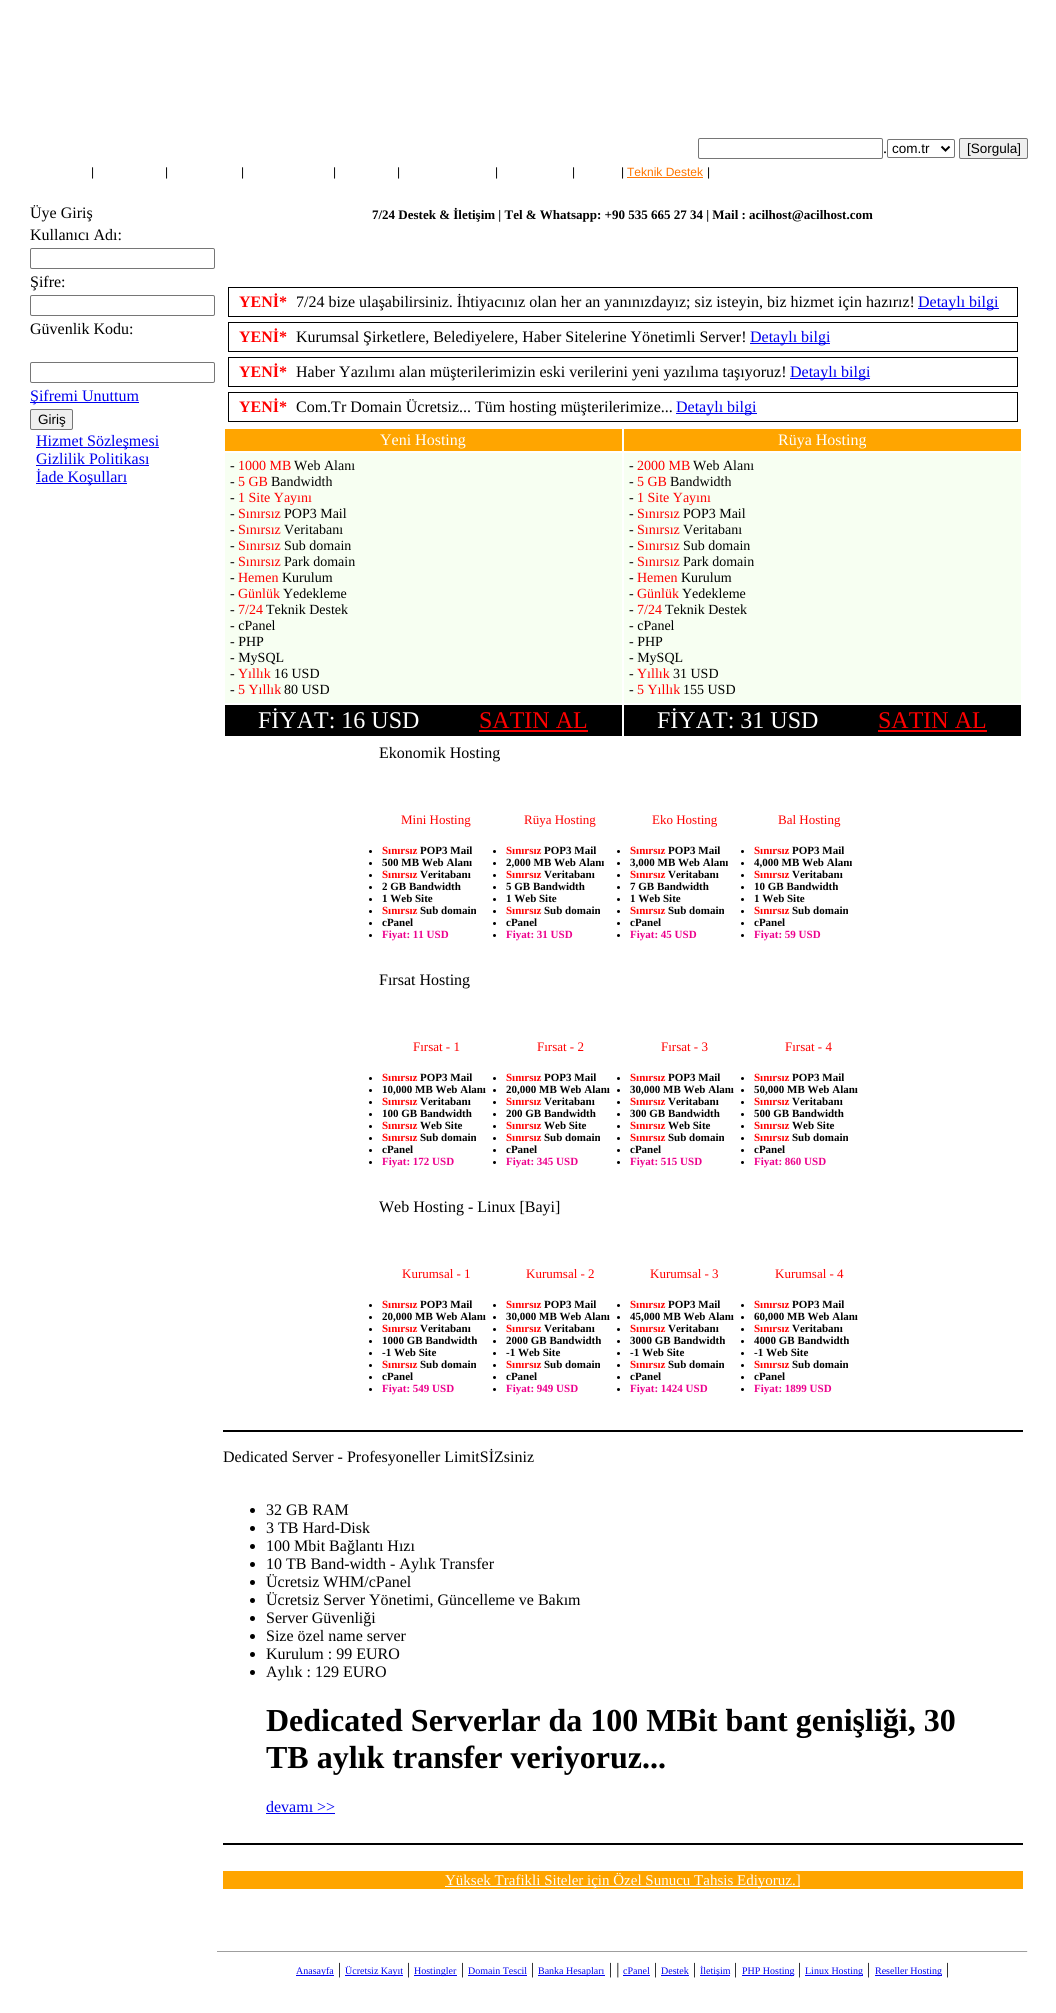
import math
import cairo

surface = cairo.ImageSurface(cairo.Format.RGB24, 1056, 2013)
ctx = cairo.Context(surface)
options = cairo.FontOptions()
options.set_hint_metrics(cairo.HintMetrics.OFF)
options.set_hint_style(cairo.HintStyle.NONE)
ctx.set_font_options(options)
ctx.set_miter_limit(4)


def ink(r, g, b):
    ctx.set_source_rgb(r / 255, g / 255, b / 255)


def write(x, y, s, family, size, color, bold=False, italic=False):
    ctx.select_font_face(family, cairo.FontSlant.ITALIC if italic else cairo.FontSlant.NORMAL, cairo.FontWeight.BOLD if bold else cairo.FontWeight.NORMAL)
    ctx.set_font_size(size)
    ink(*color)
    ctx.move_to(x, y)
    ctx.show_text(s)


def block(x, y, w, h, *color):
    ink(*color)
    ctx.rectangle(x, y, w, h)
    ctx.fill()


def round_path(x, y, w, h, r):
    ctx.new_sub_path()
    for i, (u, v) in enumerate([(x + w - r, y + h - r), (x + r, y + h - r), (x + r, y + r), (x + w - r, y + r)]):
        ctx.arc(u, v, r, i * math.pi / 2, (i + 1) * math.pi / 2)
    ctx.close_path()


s1 = dict(family="Liberation Serif", size=16, color=(0, 0, 0))
s2 = dict(family="Liberation Sans", size=13.5, color=(0, 0, 0))
s3 = dict(family="Liberation Sans", size=12, color=(0, 0, 0))
s4 = dict(family="Liberation Sans", size=12, color=(255, 117, 0))
s5 = dict(family="Liberation Serif", size=16, color=(0, 0, 238))
s6 = dict(family="Liberation Serif", size=13, color=(0, 0, 0), bold=True)
s7 = dict(family="Liberation Serif", size=16, color=(255, 0, 0), bold=True)
s8 = dict(family="Liberation Serif", size=16, color=(255, 255, 255))
s9 = dict(family="Liberation Serif", size=14, color=(0, 0, 0))
s10 = dict(family="Liberation Serif", size=14, color=(255, 0, 0))
s11 = dict(family="Liberation Serif", size=24, color=(255, 255, 255))
s12 = dict(family="Liberation Serif", size=24, color=(255, 0, 0))
s13 = dict(family="Liberation Serif", size=13, color=(255, 0, 0))
s14 = dict(family="Liberation Serif", size=11, color=(255, 0, 0), bold=True)
s15 = dict(family="Liberation Serif", size=11, color=(0, 0, 0), bold=True)
s16 = dict(family="Liberation Serif", size=11, color=(236, 0, 140), bold=True)
s17 = dict(family="Liberation Serif", size=32, color=(0, 0, 0), bold=True)
s18 = dict(family="Liberation Serif", size=15, color=(255, 255, 255))
s19 = dict(family="Liberation Serif", size=10, color=(0, 0, 238))

ink(255, 255, 255)
ctx.paint()
round_path(698.5, 138.5, 184, 20, 1.5)
ink(118, 118, 118)
ctx.set_line_width(1)
ctx.stroke()
write(883, 153, ".", **s1)
round_path(887.5, 139.5, 67, 18, 1.5)
ink(118, 118, 118)
ctx.stroke()
ctx.new_path()
ctx.move_to(941.5, 146.5)
ctx.line_to(945.5, 150.5)
ctx.line_to(949.5, 146.5)
ink(0, 0, 0)
ctx.set_line_width(2)
ctx.stroke()
write(892, 153, "com.tr", **s2)
ink(239, 239, 239)
round_path(959.5, 138.5, 68, 20, 1.5)
ctx.fill_preserve()
ink(118, 118, 118)
ctx.set_line_width(1)
ctx.stroke()
write(967, 153, "[Sorgula]", **s2)
write(91, 176, "|", **s3)
write(165, 176, "|", **s3)
write(241, 176, "|", **s3)
write(333, 176, "|", **s3)
write(397, 176, "|", **s3)
write(495, 176, "|", **s3)
write(572, 176, "|", **s3)
write(621, 176, "|", **s3)
write(627, 176, "Teknik Destek", **s4)
block(627, 177, 76, 1, 255, 117, 0)
write(707, 176, "|", **s3)
write(30, 218, "Üye Giriş", **s1)
write(30, 240, "Kullanıcı Adı:", **s1)
round_path(30.5, 248.5, 184, 20, 1.5)
ink(118, 118, 118)
ctx.stroke()
write(30, 287, "Şifre:", **s1)
round_path(30.5, 295.5, 184, 20, 1.5)
ink(118, 118, 118)
ctx.stroke()
write(30, 334, "Güvenlik Kodu:", **s1)
round_path(30.5, 362.5, 184, 20, 1.5)
ink(118, 118, 118)
ctx.stroke()
block(30, 402, 109, 1, 0, 0, 238)
write(30, 401, "Şifremi Unuttum", **s5)
ink(239, 239, 239)
round_path(30.5, 409.5, 42, 20, 1.5)
ctx.fill_preserve()
ink(118, 118, 118)
ctx.stroke()
write(38, 424, "Giriş", **s2)
block(36, 447, 123, 1, 0, 0, 238)
write(36, 446, "Hizmet Sözleşmesi", **s5)
write(36, 464, "Gizlilik Politikası", **s5)
block(36, 465, 113, 1, 0, 0, 238)
block(36, 483, 91, 1, 0, 0, 238)
write(36, 482, "İade Koşulları", **s5)
write(372, 219, "7/24 Destek & İletişim | Tel & Whatsapp: +90 535 665 27 34 | Mail : acilhost@acilhost.com", **s6)
ctx.rectangle(228.5, 287.5, 789, 29)
ctx.stroke()
write(239, 307, "YENİ*", **s7)
write(296, 307, "7/24 bize ulaşabilirsiniz. İhtiyacınız olan her an yanınızdayız; siz isteyin, biz hizmet için hazırız!", **s1)
block(918, 308, 81, 1, 0, 0, 238)
write(918, 307, "Detaylı bilgi", **s5)
ctx.rectangle(228.5, 322.5, 789, 29)
ink(0, 0, 0)
ctx.stroke()
write(239, 342, "YENİ*", **s7)
write(296, 342, "Kurumsal Şirketlere, Belediyelere, Haber Sitelerine Yönetimli Server!", **s1)
block(750, 343, 80, 1, 0, 0, 238)
write(750, 342, "Detaylı bilgi", **s5)
ctx.rectangle(228.5, 357.5, 789, 29)
ink(0, 0, 0)
ctx.stroke()
write(239, 377, "YENİ*", **s7)
write(296, 377, "Haber Yazılımı alan müşterilerimizin eski verilerini yeni yazılıma taşıyoruz!", **s1)
block(790, 378, 80, 1, 0, 0, 238)
write(790, 377, "Detaylı bilgi", **s5)
ctx.rectangle(228.5, 392.5, 789, 29)
ink(0, 0, 0)
ctx.stroke()
write(239, 412, "YENİ*", **s7)
write(296, 412, "Com.Tr Domain Ücretsiz... Tüm hosting müşterilerimize...", **s1)
block(676, 413, 81, 1, 0, 0, 238)
write(676, 412, "Detaylı bilgi", **s5)
block(225, 429, 397, 22, 255, 165, 0)
write(380, 445, "Yeni Hosting", **s8)
block(624, 429, 397, 22, 255, 165, 0)
write(778, 445, "Rüya Hosting", **s8)
block(225, 453, 397, 250, 247, 255, 242)
write(230, 470, "-", **s9)
write(238, 470, "1000 MB", **s10)
write(294, 470, "Web Alanı", **s9)
write(230, 486, "-", **s9)
write(238, 486, "5 GB", **s10)
write(271, 486, "Bandwidth", **s9)
write(230, 502, "-", **s9)
write(238, 502, "1 Site Yayını", **s10)
write(230, 518, "-", **s9)
write(238, 518, "Sınırsız", **s10)
write(284, 518, "POP3 Mail", **s9)
write(230, 534, "-", **s9)
write(238, 534, "Sınırsız", **s10)
write(284, 534, "Veritabanı", **s9)
write(230, 550, "-", **s9)
write(238, 550, "Sınırsız", **s10)
write(284, 550, "Sub domain", **s9)
write(230, 566, "-", **s9)
write(238, 566, "Sınırsız", **s10)
write(284, 566, "Park domain", **s9)
write(230, 582, "-", **s9)
write(238, 582, "Hemen", **s10)
write(282, 582, "Kurulum", **s9)
write(230, 598, "-", **s9)
write(238, 598, "Günlük", **s10)
write(283, 598, "Yedekleme", **s9)
write(230, 614, "-", **s9)
write(238, 614, "7/24", **s10)
write(266, 614, "Teknik Destek", **s9)
write(230, 630, "- cPanel", **s9)
write(230, 646, "- PHP", **s9)
write(230, 662, "- MySQL", **s9)
write(230, 678, "-", **s9)
write(238, 678, "Yıllık", **s10)
write(274, 678, "16 USD", **s9)
write(230, 694, "-", **s9)
write(238, 694, "5 Yıllık", **s10)
write(284, 694, "80 USD", **s9)
block(624, 453, 397, 250, 247, 255, 242)
write(629, 470, "-", **s9)
write(637, 470, "2000 MB", **s10)
write(693, 470, "Web Alanı", **s9)
write(629, 486, "-", **s9)
write(637, 486, "5 GB", **s10)
write(670, 486, "Bandwidth", **s9)
write(629, 502, "-", **s9)
write(637, 502, "1 Site Yayını", **s10)
write(629, 518, "-", **s9)
write(637, 518, "Sınırsız", **s10)
write(683, 518, "POP3 Mail", **s9)
write(629, 534, "-", **s9)
write(637, 534, "Sınırsız", **s10)
write(683, 534, "Veritabanı", **s9)
write(629, 550, "-", **s9)
write(637, 550, "Sınırsız", **s10)
write(683, 550, "Sub domain", **s9)
write(629, 566, "-", **s9)
write(637, 566, "Sınırsız", **s10)
write(683, 566, "Park domain", **s9)
write(629, 582, "-", **s9)
write(637, 582, "Hemen", **s10)
write(681, 582, "Kurulum", **s9)
write(629, 598, "-", **s9)
write(637, 598, "Günlük", **s10)
write(682, 598, "Yedekleme", **s9)
write(629, 614, "-", **s9)
write(637, 614, "7/24", **s10)
write(665, 614, "Teknik Destek", **s9)
write(629, 630, "- cPanel", **s9)
write(629, 646, "- PHP", **s9)
write(629, 662, "- MySQL", **s9)
write(629, 678, "-", **s9)
write(637, 678, "Yıllık", **s10)
write(673, 678, "31 USD", **s9)
write(629, 694, "-", **s9)
write(637, 694, "5 Yıllık", **s10)
write(683, 694, "155 USD", **s9)
block(225, 705, 397, 31, 0, 0, 0)
write(258, 728, "FİYAT: 16 USD", **s11)
write(479, 728, "SATIN AL", **s12)
block(479, 730, 109, 2, 255, 0, 0)
block(624, 705, 397, 31, 0, 0, 0)
write(657, 728, "FİYAT: 31 USD", **s11)
write(878, 728, "SATIN AL", **s12)
block(878, 730, 109, 2, 255, 0, 0)
write(379, 758, "Ekonomik Hosting", **s1)
write(401, 824, "Mini Hosting", **s13)
ink(0, 0, 0)
ctx.new_path()
ctx.arc(370.5, 851.5, 1.5, 0, 2 * math.pi)
ctx.fill()
write(382, 854, "Sınırsız", **s14)
write(420, 854, "POP3 Mail", **s15)
ctx.new_path()
ctx.arc(370.5, 863.5, 1.5, 0, 2 * math.pi)
ctx.fill()
write(382, 866, "500 MB Web Alanı", **s15)
ctx.new_path()
ctx.arc(370.5, 875.5, 1.5, 0, 2 * math.pi)
ctx.fill()
write(382, 878, "Sınırsız", **s14)
write(420, 878, "Veritabanı", **s15)
ctx.new_path()
ctx.arc(370.5, 887.5, 1.5, 0, 2 * math.pi)
ctx.fill()
write(382, 890, "2 GB Bandwidth", **s15)
ctx.new_path()
ctx.arc(370.5, 899.5, 1.5, 0, 2 * math.pi)
ctx.fill()
write(382, 902, "1 Web Site", **s15)
ctx.new_path()
ctx.arc(370.5, 911.5, 1.5, 0, 2 * math.pi)
ctx.fill()
write(382, 914, "Sınırsız", **s14)
write(420, 914, "Sub domain", **s15)
ctx.new_path()
ctx.arc(370.5, 923.5, 1.5, 0, 2 * math.pi)
ctx.fill()
write(382, 926, "cPanel", **s15)
ctx.new_path()
ctx.arc(370.5, 935.5, 1.5, 0, 2 * math.pi)
ctx.fill()
write(382, 938, "Fiyat: 11 USD", **s16)
write(524, 824, "Rüya Hosting", **s13)
ink(0, 0, 0)
ctx.new_path()
ctx.arc(494.5, 851.5, 1.5, 0, 2 * math.pi)
ctx.fill()
write(506, 854, "Sınırsız", **s14)
write(544, 854, "POP3 Mail", **s15)
ctx.new_path()
ctx.arc(494.5, 863.5, 1.5, 0, 2 * math.pi)
ctx.fill()
write(506, 866, "2,000 MB Web Alanı", **s15)
ctx.new_path()
ctx.arc(494.5, 875.5, 1.5, 0, 2 * math.pi)
ctx.fill()
write(506, 878, "Sınırsız", **s14)
write(544, 878, "Veritabanı", **s15)
ctx.new_path()
ctx.arc(494.5, 887.5, 1.5, 0, 2 * math.pi)
ctx.fill()
write(506, 890, "5 GB Bandwidth", **s15)
ctx.new_path()
ctx.arc(494.5, 899.5, 1.5, 0, 2 * math.pi)
ctx.fill()
write(506, 902, "1 Web Site", **s15)
ctx.new_path()
ctx.arc(494.5, 911.5, 1.5, 0, 2 * math.pi)
ctx.fill()
write(506, 914, "Sınırsız", **s14)
write(544, 914, "Sub domain", **s15)
ctx.new_path()
ctx.arc(494.5, 923.5, 1.5, 0, 2 * math.pi)
ctx.fill()
write(506, 926, "cPanel", **s15)
ctx.new_path()
ctx.arc(494.5, 935.5, 1.5, 0, 2 * math.pi)
ctx.fill()
write(506, 938, "Fiyat: 31 USD", **s16)
write(652, 824, "Eko Hosting", **s13)
ink(0, 0, 0)
ctx.new_path()
ctx.arc(618.5, 851.5, 1.5, 0, 2 * math.pi)
ctx.fill()
write(630, 854, "Sınırsız", **s14)
write(668, 854, "POP3 Mail", **s15)
ctx.new_path()
ctx.arc(618.5, 863.5, 1.5, 0, 2 * math.pi)
ctx.fill()
write(630, 866, "3,000 MB Web Alanı", **s15)
ctx.new_path()
ctx.arc(618.5, 875.5, 1.5, 0, 2 * math.pi)
ctx.fill()
write(630, 878, "Sınırsız", **s14)
write(668, 878, "Veritabanı", **s15)
ctx.new_path()
ctx.arc(618.5, 887.5, 1.5, 0, 2 * math.pi)
ctx.fill()
write(630, 890, "7 GB Bandwidth", **s15)
ctx.new_path()
ctx.arc(618.5, 899.5, 1.5, 0, 2 * math.pi)
ctx.fill()
write(630, 902, "1 Web Site", **s15)
ctx.new_path()
ctx.arc(618.5, 911.5, 1.5, 0, 2 * math.pi)
ctx.fill()
write(630, 914, "Sınırsız", **s14)
write(668, 914, "Sub domain", **s15)
ctx.new_path()
ctx.arc(618.5, 923.5, 1.5, 0, 2 * math.pi)
ctx.fill()
write(630, 926, "cPanel", **s15)
ctx.new_path()
ctx.arc(618.5, 935.5, 1.5, 0, 2 * math.pi)
ctx.fill()
write(630, 938, "Fiyat: 45 USD", **s16)
write(778, 824, "Bal Hosting", **s13)
ink(0, 0, 0)
ctx.new_path()
ctx.arc(742.5, 851.5, 1.5, 0, 2 * math.pi)
ctx.fill()
write(754, 854, "Sınırsız", **s14)
write(792, 854, "POP3 Mail", **s15)
ctx.new_path()
ctx.arc(742.5, 863.5, 1.5, 0, 2 * math.pi)
ctx.fill()
write(754, 866, "4,000 MB Web Alanı", **s15)
ctx.new_path()
ctx.arc(742.5, 875.5, 1.5, 0, 2 * math.pi)
ctx.fill()
write(754, 878, "Sınırsız", **s14)
write(792, 878, "Veritabanı", **s15)
ctx.new_path()
ctx.arc(742.5, 887.5, 1.5, 0, 2 * math.pi)
ctx.fill()
write(754, 890, "10 GB Bandwidth", **s15)
ctx.new_path()
ctx.arc(742.5, 899.5, 1.5, 0, 2 * math.pi)
ctx.fill()
write(754, 902, "1 Web Site", **s15)
ctx.new_path()
ctx.arc(742.5, 911.5, 1.5, 0, 2 * math.pi)
ctx.fill()
write(754, 914, "Sınırsız", **s14)
write(792, 914, "Sub domain", **s15)
ctx.new_path()
ctx.arc(742.5, 923.5, 1.5, 0, 2 * math.pi)
ctx.fill()
write(754, 926, "cPanel", **s15)
ctx.new_path()
ctx.arc(742.5, 935.5, 1.5, 0, 2 * math.pi)
ctx.fill()
write(754, 938, "Fiyat: 59 USD", **s16)
write(379, 985, "Fırsat Hosting", **s1)
write(413, 1051, "Fırsat - 1", **s13)
ink(0, 0, 0)
ctx.new_path()
ctx.arc(370.5, 1078.5, 1.5, 0, 2 * math.pi)
ctx.fill()
write(382, 1081, "Sınırsız", **s14)
write(420, 1081, "POP3 Mail", **s15)
ctx.new_path()
ctx.arc(370.5, 1090.5, 1.5, 0, 2 * math.pi)
ctx.fill()
write(382, 1093, "10,000 MB Web Alanı", **s15)
ctx.new_path()
ctx.arc(370.5, 1102.5, 1.5, 0, 2 * math.pi)
ctx.fill()
write(382, 1105, "Sınırsız", **s14)
write(420, 1105, "Veritabanı", **s15)
ctx.new_path()
ctx.arc(370.5, 1114.5, 1.5, 0, 2 * math.pi)
ctx.fill()
write(382, 1117, "100 GB Bandwidth", **s15)
ctx.new_path()
ctx.arc(370.5, 1126.5, 1.5, 0, 2 * math.pi)
ctx.fill()
write(382, 1129, "Sınırsız", **s14)
write(420, 1129, "Web Site", **s15)
ctx.new_path()
ctx.arc(370.5, 1138.5, 1.5, 0, 2 * math.pi)
ctx.fill()
write(382, 1141, "Sınırsız", **s14)
write(420, 1141, "Sub domain", **s15)
ctx.new_path()
ctx.arc(370.5, 1150.5, 1.5, 0, 2 * math.pi)
ctx.fill()
write(382, 1153, "cPanel", **s15)
ctx.new_path()
ctx.arc(370.5, 1162.5, 1.5, 0, 2 * math.pi)
ctx.fill()
write(382, 1165, "Fiyat: 172 USD", **s16)
write(537, 1051, "Fırsat - 2", **s13)
ink(0, 0, 0)
ctx.new_path()
ctx.arc(494.5, 1078.5, 1.5, 0, 2 * math.pi)
ctx.fill()
write(506, 1081, "Sınırsız", **s14)
write(544, 1081, "POP3 Mail", **s15)
ctx.new_path()
ctx.arc(494.5, 1090.5, 1.5, 0, 2 * math.pi)
ctx.fill()
write(506, 1093, "20,000 MB Web Alanı", **s15)
ctx.new_path()
ctx.arc(494.5, 1102.5, 1.5, 0, 2 * math.pi)
ctx.fill()
write(506, 1105, "Sınırsız", **s14)
write(544, 1105, "Veritabanı", **s15)
ctx.new_path()
ctx.arc(494.5, 1114.5, 1.5, 0, 2 * math.pi)
ctx.fill()
write(506, 1117, "200 GB Bandwidth", **s15)
ctx.new_path()
ctx.arc(494.5, 1126.5, 1.5, 0, 2 * math.pi)
ctx.fill()
write(506, 1129, "Sınırsız", **s14)
write(544, 1129, "Web Site", **s15)
ctx.new_path()
ctx.arc(494.5, 1138.5, 1.5, 0, 2 * math.pi)
ctx.fill()
write(506, 1141, "Sınırsız", **s14)
write(544, 1141, "Sub domain", **s15)
ctx.new_path()
ctx.arc(494.5, 1150.5, 1.5, 0, 2 * math.pi)
ctx.fill()
write(506, 1153, "cPanel", **s15)
ctx.new_path()
ctx.arc(494.5, 1162.5, 1.5, 0, 2 * math.pi)
ctx.fill()
write(506, 1165, "Fiyat: 345 USD", **s16)
write(661, 1051, "Fırsat - 3", **s13)
ink(0, 0, 0)
ctx.new_path()
ctx.arc(618.5, 1078.5, 1.5, 0, 2 * math.pi)
ctx.fill()
write(630, 1081, "Sınırsız", **s14)
write(668, 1081, "POP3 Mail", **s15)
ctx.new_path()
ctx.arc(618.5, 1090.5, 1.5, 0, 2 * math.pi)
ctx.fill()
write(630, 1093, "30,000 MB Web Alanı", **s15)
ctx.new_path()
ctx.arc(618.5, 1102.5, 1.5, 0, 2 * math.pi)
ctx.fill()
write(630, 1105, "Sınırsız", **s14)
write(668, 1105, "Veritabanı", **s15)
ctx.new_path()
ctx.arc(618.5, 1114.5, 1.5, 0, 2 * math.pi)
ctx.fill()
write(630, 1117, "300 GB Bandwidth", **s15)
ctx.new_path()
ctx.arc(618.5, 1126.5, 1.5, 0, 2 * math.pi)
ctx.fill()
write(630, 1129, "Sınırsız", **s14)
write(668, 1129, "Web Site", **s15)
ctx.new_path()
ctx.arc(618.5, 1138.5, 1.5, 0, 2 * math.pi)
ctx.fill()
write(630, 1141, "Sınırsız", **s14)
write(668, 1141, "Sub domain", **s15)
ctx.new_path()
ctx.arc(618.5, 1150.5, 1.5, 0, 2 * math.pi)
ctx.fill()
write(630, 1153, "cPanel", **s15)
ctx.new_path()
ctx.arc(618.5, 1162.5, 1.5, 0, 2 * math.pi)
ctx.fill()
write(630, 1165, "Fiyat: 515 USD", **s16)
write(785, 1051, "Fırsat - 4", **s13)
ink(0, 0, 0)
ctx.new_path()
ctx.arc(742.5, 1078.5, 1.5, 0, 2 * math.pi)
ctx.fill()
write(754, 1081, "Sınırsız", **s14)
write(792, 1081, "POP3 Mail", **s15)
ctx.new_path()
ctx.arc(742.5, 1090.5, 1.5, 0, 2 * math.pi)
ctx.fill()
write(754, 1093, "50,000 MB Web Alanı", **s15)
ctx.new_path()
ctx.arc(742.5, 1102.5, 1.5, 0, 2 * math.pi)
ctx.fill()
write(754, 1105, "Sınırsız", **s14)
write(792, 1105, "Veritabanı", **s15)
ctx.new_path()
ctx.arc(742.5, 1114.5, 1.5, 0, 2 * math.pi)
ctx.fill()
write(754, 1117, "500 GB Bandwidth", **s15)
ctx.new_path()
ctx.arc(742.5, 1126.5, 1.5, 0, 2 * math.pi)
ctx.fill()
write(754, 1129, "Sınırsız", **s14)
write(792, 1129, "Web Site", **s15)
ctx.new_path()
ctx.arc(742.5, 1138.5, 1.5, 0, 2 * math.pi)
ctx.fill()
write(754, 1141, "Sınırsız", **s14)
write(792, 1141, "Sub domain", **s15)
ctx.new_path()
ctx.arc(742.5, 1150.5, 1.5, 0, 2 * math.pi)
ctx.fill()
write(754, 1153, "cPanel", **s15)
ctx.new_path()
ctx.arc(742.5, 1162.5, 1.5, 0, 2 * math.pi)
ctx.fill()
write(754, 1165, "Fiyat: 860 USD", **s16)
write(379, 1212, "Web Hosting - Linux [Bayi]", **s1)
write(402, 1278, "Kurumsal - 1", **s13)
ink(0, 0, 0)
ctx.new_path()
ctx.arc(370.5, 1305.5, 1.5, 0, 2 * math.pi)
ctx.fill()
write(382, 1308, "Sınırsız", **s14)
write(420, 1308, "POP3 Mail", **s15)
ctx.new_path()
ctx.arc(370.5, 1317.5, 1.5, 0, 2 * math.pi)
ctx.fill()
write(382, 1320, "20,000 MB Web Alanı", **s15)
ctx.new_path()
ctx.arc(370.5, 1329.5, 1.5, 0, 2 * math.pi)
ctx.fill()
write(382, 1332, "Sınırsız", **s14)
write(420, 1332, "Veritabanı", **s15)
ctx.new_path()
ctx.arc(370.5, 1341.5, 1.5, 0, 2 * math.pi)
ctx.fill()
write(382, 1344, "1000 GB Bandwidth", **s15)
ctx.new_path()
ctx.arc(370.5, 1353.5, 1.5, 0, 2 * math.pi)
ctx.fill()
write(382, 1356, "-1 Web Site", **s15)
ctx.new_path()
ctx.arc(370.5, 1365.5, 1.5, 0, 2 * math.pi)
ctx.fill()
write(382, 1368, "Sınırsız", **s14)
write(420, 1368, "Sub domain", **s15)
ctx.new_path()
ctx.arc(370.5, 1377.5, 1.5, 0, 2 * math.pi)
ctx.fill()
write(382, 1380, "cPanel", **s15)
ctx.new_path()
ctx.arc(370.5, 1389.5, 1.5, 0, 2 * math.pi)
ctx.fill()
write(382, 1392, "Fiyat: 549 USD", **s16)
write(526, 1278, "Kurumsal - 2", **s13)
ink(0, 0, 0)
ctx.new_path()
ctx.arc(494.5, 1305.5, 1.5, 0, 2 * math.pi)
ctx.fill()
write(506, 1308, "Sınırsız", **s14)
write(544, 1308, "POP3 Mail", **s15)
ctx.new_path()
ctx.arc(494.5, 1317.5, 1.5, 0, 2 * math.pi)
ctx.fill()
write(506, 1320, "30,000 MB Web Alanı", **s15)
ctx.new_path()
ctx.arc(494.5, 1329.5, 1.5, 0, 2 * math.pi)
ctx.fill()
write(506, 1332, "Sınırsız", **s14)
write(544, 1332, "Veritabanı", **s15)
ctx.new_path()
ctx.arc(494.5, 1341.5, 1.5, 0, 2 * math.pi)
ctx.fill()
write(506, 1344, "2000 GB Bandwidth", **s15)
ctx.new_path()
ctx.arc(494.5, 1353.5, 1.5, 0, 2 * math.pi)
ctx.fill()
write(506, 1356, "-1 Web Site", **s15)
ctx.new_path()
ctx.arc(494.5, 1365.5, 1.5, 0, 2 * math.pi)
ctx.fill()
write(506, 1368, "Sınırsız", **s14)
write(544, 1368, "Sub domain", **s15)
ctx.new_path()
ctx.arc(494.5, 1377.5, 1.5, 0, 2 * math.pi)
ctx.fill()
write(506, 1380, "cPanel", **s15)
ctx.new_path()
ctx.arc(494.5, 1389.5, 1.5, 0, 2 * math.pi)
ctx.fill()
write(506, 1392, "Fiyat: 949 USD", **s16)
write(650, 1278, "Kurumsal - 3", **s13)
ink(0, 0, 0)
ctx.new_path()
ctx.arc(618.5, 1305.5, 1.5, 0, 2 * math.pi)
ctx.fill()
write(630, 1308, "Sınırsız", **s14)
write(668, 1308, "POP3 Mail", **s15)
ctx.new_path()
ctx.arc(618.5, 1317.5, 1.5, 0, 2 * math.pi)
ctx.fill()
write(630, 1320, "45,000 MB Web Alanı", **s15)
ctx.new_path()
ctx.arc(618.5, 1329.5, 1.5, 0, 2 * math.pi)
ctx.fill()
write(630, 1332, "Sınırsız", **s14)
write(668, 1332, "Veritabanı", **s15)
ctx.new_path()
ctx.arc(618.5, 1341.5, 1.5, 0, 2 * math.pi)
ctx.fill()
write(630, 1344, "3000 GB Bandwidth", **s15)
ctx.new_path()
ctx.arc(618.5, 1353.5, 1.5, 0, 2 * math.pi)
ctx.fill()
write(630, 1356, "-1 Web Site", **s15)
ctx.new_path()
ctx.arc(618.5, 1365.5, 1.5, 0, 2 * math.pi)
ctx.fill()
write(630, 1368, "Sınırsız", **s14)
write(668, 1368, "Sub domain", **s15)
ctx.new_path()
ctx.arc(618.5, 1377.5, 1.5, 0, 2 * math.pi)
ctx.fill()
write(630, 1380, "cPanel", **s15)
ctx.new_path()
ctx.arc(618.5, 1389.5, 1.5, 0, 2 * math.pi)
ctx.fill()
write(630, 1392, "Fiyat: 1424 USD", **s16)
write(775, 1278, "Kurumsal - 4", **s13)
ink(0, 0, 0)
ctx.new_path()
ctx.arc(742.5, 1305.5, 1.5, 0, 2 * math.pi)
ctx.fill()
write(754, 1308, "Sınırsız", **s14)
write(792, 1308, "POP3 Mail", **s15)
ctx.new_path()
ctx.arc(742.5, 1317.5, 1.5, 0, 2 * math.pi)
ctx.fill()
write(754, 1320, "60,000 MB Web Alanı", **s15)
ctx.new_path()
ctx.arc(742.5, 1329.5, 1.5, 0, 2 * math.pi)
ctx.fill()
write(754, 1332, "Sınırsız", **s14)
write(792, 1332, "Veritabanı", **s15)
ctx.new_path()
ctx.arc(742.5, 1341.5, 1.5, 0, 2 * math.pi)
ctx.fill()
write(754, 1344, "4000 GB Bandwidth", **s15)
ctx.new_path()
ctx.arc(742.5, 1353.5, 1.5, 0, 2 * math.pi)
ctx.fill()
write(754, 1356, "-1 Web Site", **s15)
ctx.new_path()
ctx.arc(742.5, 1365.5, 1.5, 0, 2 * math.pi)
ctx.fill()
write(754, 1368, "Sınırsız", **s14)
write(792, 1368, "Sub domain", **s15)
ctx.new_path()
ctx.arc(742.5, 1377.5, 1.5, 0, 2 * math.pi)
ctx.fill()
write(754, 1380, "cPanel", **s15)
ctx.new_path()
ctx.arc(742.5, 1389.5, 1.5, 0, 2 * math.pi)
ctx.fill()
write(754, 1392, "Fiyat: 1899 USD", **s16)
block(223, 1430, 800, 2, 0, 0, 0)
write(223, 1462, "Dedicated Server - Profesyoneller LimitSİZsiniz", **s1)
ctx.new_path()
ctx.arc(252.5, 1510.5, 2.5, 0, 2 * math.pi)
ctx.fill()
write(266, 1515, "32 GB RAM", **s1)
ctx.new_path()
ctx.arc(252.5, 1528.5, 2.5, 0, 2 * math.pi)
ctx.fill()
write(266, 1533, "3 TB Hard-Disk", **s1)
ctx.new_path()
ctx.arc(252.5, 1546.5, 2.5, 0, 2 * math.pi)
ctx.fill()
write(266, 1551, "100 Mbit Bağlantı Hızı", **s1)
ctx.new_path()
ctx.arc(252.5, 1564.5, 2.5, 0, 2 * math.pi)
ctx.fill()
write(266, 1569, "10 TB Band-width - Aylık Transfer", **s1)
ctx.new_path()
ctx.arc(252.5, 1582.5, 2.5, 0, 2 * math.pi)
ctx.fill()
write(266, 1587, "Ücretsiz WHM/cPanel", **s1)
ctx.new_path()
ctx.arc(252.5, 1600.5, 2.5, 0, 2 * math.pi)
ctx.fill()
write(266, 1605, "Ücretsiz Server Yönetimi, Güncelleme ve Bakım", **s1)
ctx.new_path()
ctx.arc(252.5, 1618.5, 2.5, 0, 2 * math.pi)
ctx.fill()
write(266, 1623, "Server Güvenliği", **s1)
ctx.new_path()
ctx.arc(252.5, 1636.5, 2.5, 0, 2 * math.pi)
ctx.fill()
write(266, 1641, "Size özel name server", **s1)
ctx.new_path()
ctx.arc(252.5, 1654.5, 2.5, 0, 2 * math.pi)
ctx.fill()
write(266, 1659, "Kurulum : 99 EURO", **s1)
ctx.new_path()
ctx.arc(252.5, 1672.5, 2.5, 0, 2 * math.pi)
ctx.fill()
write(266, 1677, "Aylık : 129 EURO", **s1)
write(266, 1731, "Dedicated Serverlar da 100 MBit bant genişliği, 30", **s17)
write(266, 1768, "TB aylık transfer veriyoruz...", **s17)
write(266, 1812, "devamı >>", **s5)
block(266, 1813, 69, 1, 0, 0, 238)
block(223, 1843, 800, 2, 0, 0, 0)
block(223, 1871, 800, 18, 255, 165, 0)
block(445, 1886, 355, 1, 255, 255, 255)
write(445, 1885, "Yüksek Trafikli Siteler için Özel Sunucu Tahsis Ediyoruz.]", **s18)
block(217, 1951, 811, 1, 159, 159, 159)
block(1027, 1951, 1, 1, 238, 238, 238)
block(296, 1975, 38, 1, 0, 0, 238)
write(296, 1974, "Anasayfa", **s19)
write(338, 1974, "|", **s1)
block(345, 1975, 58, 1, 0, 0, 238)
write(345, 1974, "Ücretsiz Kayıt", **s19)
write(407, 1974, "|", **s1)
block(414, 1975, 43, 1, 0, 0, 238)
write(414, 1974, "Hostingler", **s19)
write(461, 1974, "|", **s1)
write(468, 1974, "Domain Tescil", **s19)
block(468, 1975, 59, 1, 0, 0, 238)
write(531, 1974, "|", **s1)
block(538, 1975, 67, 1, 0, 0, 238)
write(538, 1974, "Banka Hesapları", **s19)
write(609, 1974, "| |", **s1)
write(623, 1974, "cPanel", **s19)
block(623, 1975, 27, 1, 0, 0, 238)
write(654, 1974, "|", **s1)
write(661, 1974, "Destek", **s19)
block(661, 1975, 28, 1, 0, 0, 238)
write(693, 1974, "|", **s1)
block(700, 1975, 30, 1, 0, 0, 238)
write(700, 1974, "İletişim", **s19)
write(734, 1974, "|", **s1)
block(742, 1975, 52, 1, 0, 0, 238)
write(742, 1974, "PHP Hosting", **s19)
write(798, 1974, "|", **s1)
block(805, 1975, 58, 1, 0, 0, 238)
write(805, 1974, "Linux Hosting", **s19)
write(867, 1974, "|", **s1)
block(875, 1975, 67, 1, 0, 0, 238)
write(875, 1974, "Reseller Hosting", **s19)
write(946, 1974, "|", **s1)
surface.write_to_png("screenshot.png")
